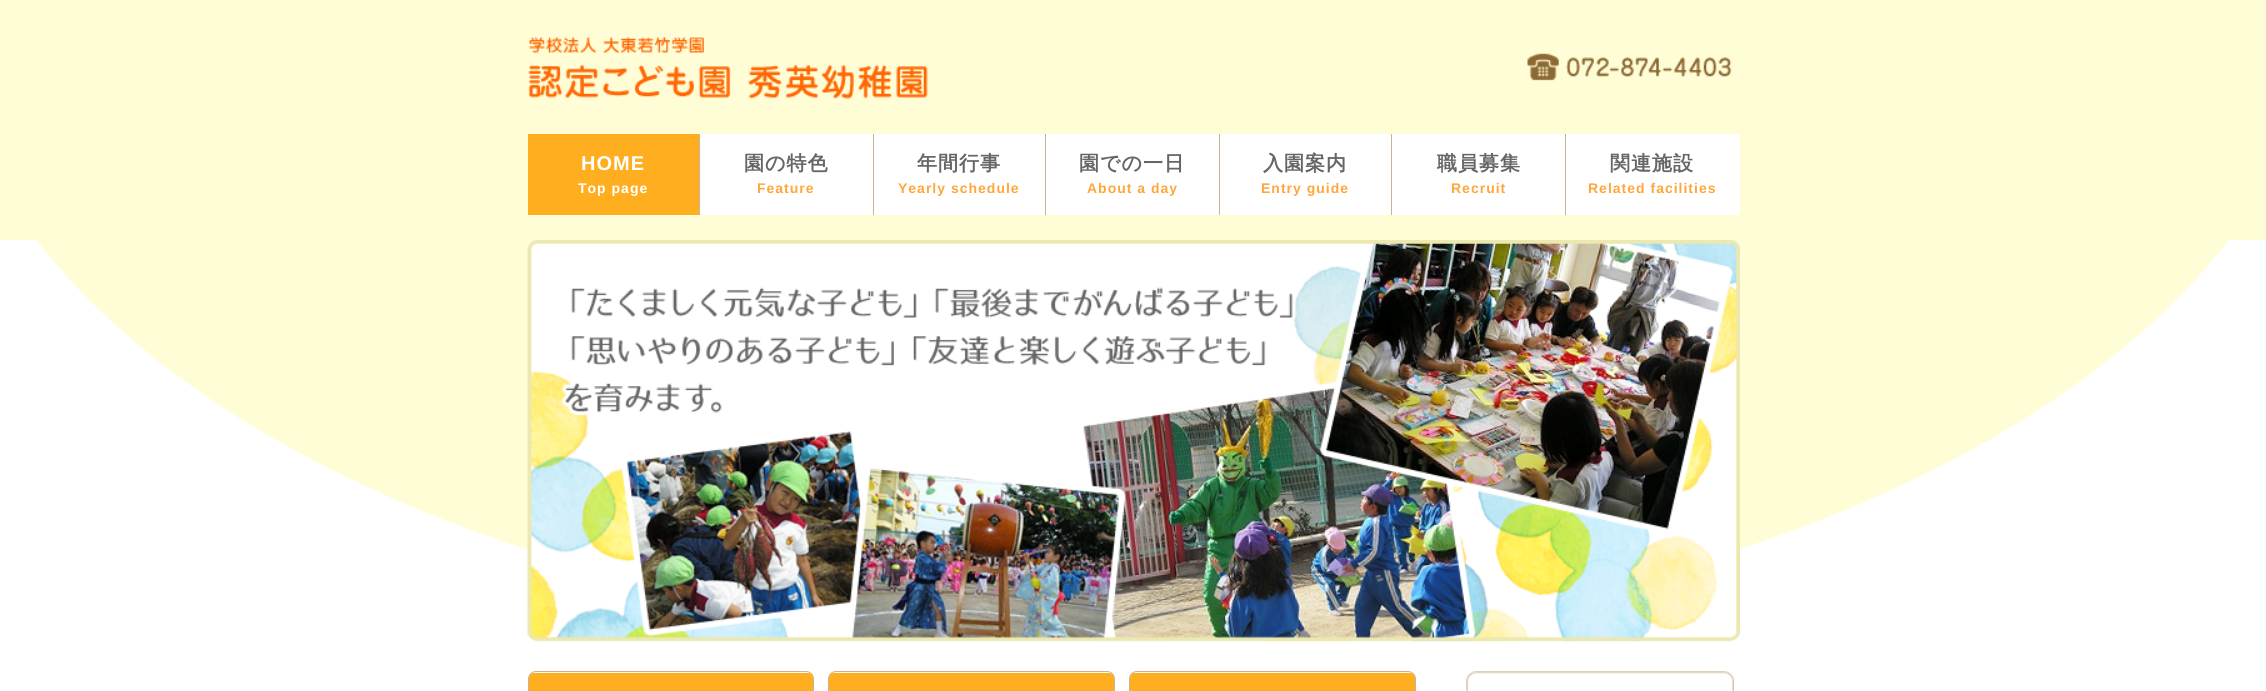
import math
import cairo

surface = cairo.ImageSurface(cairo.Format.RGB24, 2266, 691)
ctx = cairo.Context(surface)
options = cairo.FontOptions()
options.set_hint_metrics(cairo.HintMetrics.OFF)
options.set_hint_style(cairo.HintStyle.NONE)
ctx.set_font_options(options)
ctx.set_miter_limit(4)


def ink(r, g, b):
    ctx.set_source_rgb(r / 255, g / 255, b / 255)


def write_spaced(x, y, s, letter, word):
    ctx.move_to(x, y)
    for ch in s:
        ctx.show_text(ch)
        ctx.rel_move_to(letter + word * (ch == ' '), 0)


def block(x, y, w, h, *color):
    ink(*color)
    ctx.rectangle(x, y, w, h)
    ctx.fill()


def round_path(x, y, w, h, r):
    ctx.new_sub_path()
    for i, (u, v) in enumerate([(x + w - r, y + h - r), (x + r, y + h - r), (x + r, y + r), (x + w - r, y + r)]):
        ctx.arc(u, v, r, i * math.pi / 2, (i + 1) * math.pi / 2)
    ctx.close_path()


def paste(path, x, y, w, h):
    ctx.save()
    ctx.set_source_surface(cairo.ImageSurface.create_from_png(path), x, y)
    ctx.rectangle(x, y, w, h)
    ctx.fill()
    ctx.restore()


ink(255, 255, 255)
ctx.paint()
block(0, 0, 2266, 240, 255, 253, 214)
paste("pic1.png", 528, 37, 400, 62)
paste("pic2.png", 1527, 53, 205, 28)
block(700, 134, 1040, 81, 255, 255, 255)
block(699, 134, 1, 81, 201, 179, 147)
block(528, 134, 171, 81, 255, 174, 32)
ctx.select_font_face("Liberation Sans", cairo.FontSlant.NORMAL, cairo.FontWeight.BOLD)
ctx.set_font_size(20)
ink(255, 255, 255)
write_spaced(581, 170, "HOME", 1, 0)
ctx.set_font_size(14)
write_spaced(578, 193, "Top page", 1, 0)
block(873, 134, 1, 81, 201, 179, 147)
ctx.select_font_face("WenQuanYi Zen Hei", cairo.FontSlant.NORMAL, cairo.FontWeight.BOLD)
ctx.set_font_size(20)
ink(102, 102, 102)
write_spaced(744, 170, "園の特色", 1, 0)
ctx.select_font_face("Liberation Sans", cairo.FontSlant.NORMAL, cairo.FontWeight.BOLD)
ctx.set_font_size(14)
ink(255, 166, 60)
write_spaced(757, 193, "Feature", 1, 0)
block(1045, 134, 1, 81, 201, 179, 147)
ctx.select_font_face("WenQuanYi Zen Hei", cairo.FontSlant.NORMAL, cairo.FontWeight.BOLD)
ctx.set_font_size(20)
ink(102, 102, 102)
write_spaced(917, 170, "年間行事", 1, 0)
ctx.select_font_face("Liberation Sans", cairo.FontSlant.NORMAL, cairo.FontWeight.BOLD)
ctx.set_font_size(14)
ink(255, 166, 60)
write_spaced(898, 193, "Yearly schedule", 1, 0)
block(1219, 134, 1, 81, 201, 179, 147)
ctx.select_font_face("WenQuanYi Zen Hei", cairo.FontSlant.NORMAL, cairo.FontWeight.BOLD)
ctx.set_font_size(20)
ink(102, 102, 102)
write_spaced(1079, 170, "園での一日", 1, 0)
ctx.select_font_face("Liberation Sans", cairo.FontSlant.NORMAL, cairo.FontWeight.BOLD)
ctx.set_font_size(14)
ink(255, 166, 60)
write_spaced(1087, 193, "About a day", 1, 0)
block(1391, 134, 1, 81, 201, 179, 147)
ctx.select_font_face("WenQuanYi Zen Hei", cairo.FontSlant.NORMAL, cairo.FontWeight.BOLD)
ctx.set_font_size(20)
ink(102, 102, 102)
write_spaced(1263, 170, "入園案内", 1, 0)
ctx.select_font_face("Liberation Sans", cairo.FontSlant.NORMAL, cairo.FontWeight.BOLD)
ctx.set_font_size(14)
ink(255, 166, 60)
write_spaced(1261, 193, "Entry guide", 1, 0)
block(1565, 134, 1, 81, 201, 179, 147)
ctx.select_font_face("WenQuanYi Zen Hei", cairo.FontSlant.NORMAL, cairo.FontWeight.BOLD)
ctx.set_font_size(20)
ink(102, 102, 102)
write_spaced(1437, 170, "職員募集", 1, 0)
ctx.select_font_face("Liberation Sans", cairo.FontSlant.NORMAL, cairo.FontWeight.BOLD)
ctx.set_font_size(14)
ink(255, 166, 60)
write_spaced(1451, 193, "Recruit", 1, 0)
ctx.select_font_face("WenQuanYi Zen Hei", cairo.FontSlant.NORMAL, cairo.FontWeight.BOLD)
ctx.set_font_size(20)
ink(102, 102, 102)
write_spaced(1610, 170, "関連施設", 1, 0)
ctx.select_font_face("Liberation Sans", cairo.FontSlant.NORMAL, cairo.FontWeight.BOLD)
ctx.set_font_size(14)
ink(255, 166, 60)
write_spaced(1588, 193, "Related facilities", 1, 0)
paste("pic3.png", 36, 240, 2193, 402)
paste("pic4.png", 527, 240, 1213, 402)
ink(255, 254, 235)
round_path(528.5, 671.5, 285, 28, 7.5)
ctx.fill_preserve()
ink(201, 179, 147)
ctx.set_line_width(1)
ctx.stroke()
ink(255, 174, 32)
ctx.new_path()
ctx.move_to(534, 673)
ctx.line_to(808, 673)
ctx.curve_to(811, 673, 813, 675, 813, 678)
ctx.line_to(813, 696)
ctx.line_to(529, 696)
ctx.line_to(529, 678)
ctx.curve_to(529, 675, 531, 673, 534, 673)
ctx.close_path()
ctx.fill()
ink(255, 254, 235)
round_path(828.5, 671.5, 286, 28, 7.5)
ctx.fill_preserve()
ink(201, 179, 147)
ctx.stroke()
ink(255, 174, 32)
ctx.new_path()
ctx.move_to(834, 673)
ctx.line_to(1109, 673)
ctx.curve_to(1112, 673, 1114, 675, 1114, 678)
ctx.line_to(1114, 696)
ctx.line_to(829, 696)
ctx.line_to(829, 678)
ctx.curve_to(829, 675, 831, 673, 834, 673)
ctx.close_path()
ctx.fill()
ink(255, 254, 235)
round_path(1129.5, 671.5, 286, 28, 7.5)
ctx.fill_preserve()
ink(201, 179, 147)
ctx.stroke()
ink(255, 174, 32)
ctx.new_path()
ctx.move_to(1135, 673)
ctx.line_to(1410, 673)
ctx.curve_to(1413, 673, 1415, 675, 1415, 678)
ctx.line_to(1415, 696)
ctx.line_to(1130, 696)
ctx.line_to(1130, 678)
ctx.curve_to(1130, 675, 1132, 673, 1135, 673)
ctx.close_path()
ctx.fill()
paste("pic5.png", 1466, 671, 268, 20)
surface.write_to_png("screenshot.png")
